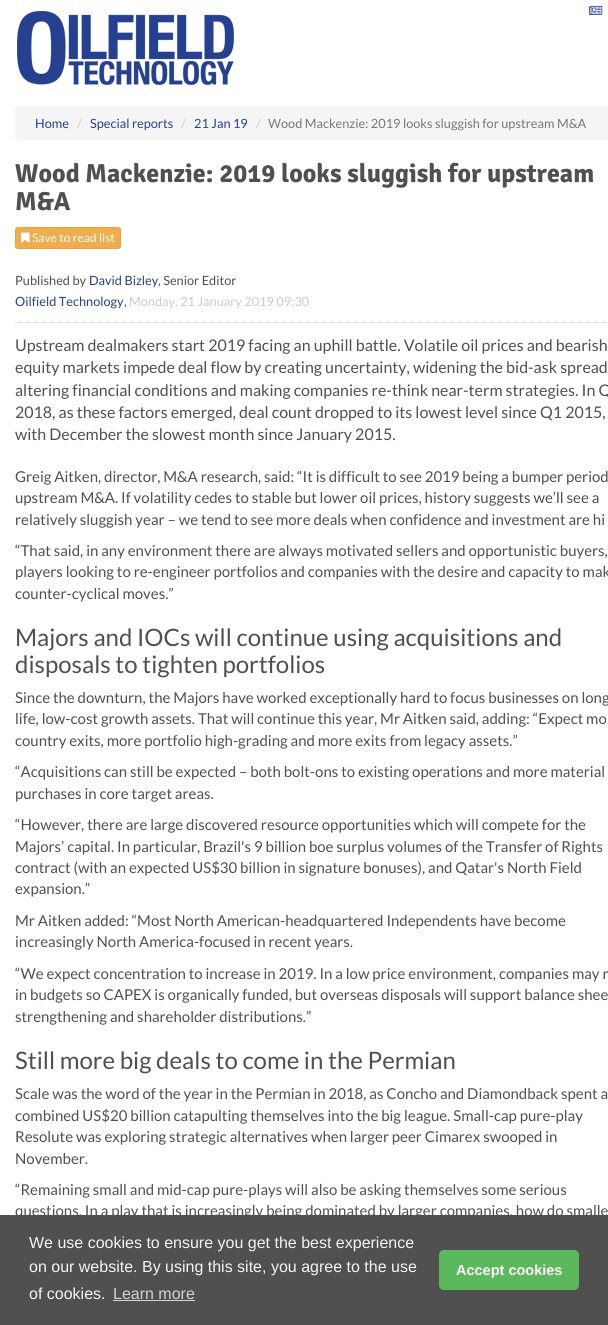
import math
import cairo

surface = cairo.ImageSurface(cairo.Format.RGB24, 608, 1325)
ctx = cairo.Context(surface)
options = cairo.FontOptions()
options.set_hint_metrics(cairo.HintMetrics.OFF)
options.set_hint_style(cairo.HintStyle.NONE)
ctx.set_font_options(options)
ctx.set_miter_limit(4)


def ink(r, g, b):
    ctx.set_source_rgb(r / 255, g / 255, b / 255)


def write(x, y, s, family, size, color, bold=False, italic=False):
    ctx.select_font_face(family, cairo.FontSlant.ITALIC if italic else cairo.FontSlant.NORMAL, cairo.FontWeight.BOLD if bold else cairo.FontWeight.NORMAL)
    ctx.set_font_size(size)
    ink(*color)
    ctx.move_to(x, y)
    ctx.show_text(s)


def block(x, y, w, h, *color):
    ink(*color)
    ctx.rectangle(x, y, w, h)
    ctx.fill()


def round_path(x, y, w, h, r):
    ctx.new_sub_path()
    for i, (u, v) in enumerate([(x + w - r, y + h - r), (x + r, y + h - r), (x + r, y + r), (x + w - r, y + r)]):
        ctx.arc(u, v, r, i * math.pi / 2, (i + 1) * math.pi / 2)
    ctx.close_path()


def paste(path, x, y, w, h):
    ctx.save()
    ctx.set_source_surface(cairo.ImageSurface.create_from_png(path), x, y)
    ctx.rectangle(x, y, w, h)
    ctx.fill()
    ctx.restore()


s1 = dict(family="Lato", size=12.75, color=(37, 64, 143))
s2 = dict(family="Lato", size=12.75, color=(204, 204, 204))
s3 = dict(family="Lato", size=12.75, color=(119, 119, 119))
s4 = dict(family="Signika", size=26, color=(80, 80, 80), bold=True)
s5 = dict(family="Lato", size=12, color=(255, 255, 255))
s6 = dict(family="Lato", size=12.75, color=(80, 80, 80))
s7 = dict(family="Lato", size=16, color=(80, 80, 80))
s8 = dict(family="Lato", size=15, color=(80, 80, 80))
s9 = dict(family="Lato", size=24, color=(80, 80, 80))
s10 = dict(family="Liberation Sans", size=16, color=(244, 244, 244))
s11 = dict(family="Liberation Sans", size=16, color=(211, 211, 211))
s12 = dict(family="Liberation Sans", size=14.5, color=(255, 255, 255), bold=True)

ink(255, 255, 255)
ctx.paint()
paste("pic1.png", 589, 5, 14, 10)
paste("pic2.png", 17, 11, 217, 74)
ink(245, 245, 245)
round_path(15, 106, 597, 34, 4)
ctx.fill()
write(35, 128, "Home", **s1)
write(77, 128, "/", **s2)
write(90, 128, "Special reports", **s1)
write(181, 128, "/", **s2)
write(194, 128, "21 Jan 19", **s1)
write(256, 128, "/", **s2)
write(268, 128, "Wood Mackenzie: 2019 looks sluggish for upstream M&A", **s3)
write(15, 182, "Wood Mackenzie: 2019 looks sluggish for upstream", **s4)
write(15, 210, "M&A", **s4)
ink(240, 173, 78)
round_path(15.5, 227.5, 105, 21, 2.5)
ctx.fill_preserve()
ink(238, 162, 54)
ctx.set_line_width(1)
ctx.stroke()
paste("pic3.png", 21, 232, 9, 11)
write(32, 242, "Save to read list", **s5)
write(15, 285, "Published by", **s6)
write(89, 285, "David Bizley", **s1)
write(158, 285, ", Senior Editor", **s6)
write(15, 306, "Oilfield Technology", **s1)
write(124, 306, ",", **s6)
write(129, 306, "Monday, 21 January 2019 09:30", **s2)
ctx.new_path()
ctx.move_to(15, 322.5)
ctx.line_to(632, 322.5)
ink(221, 221, 221)
ctx.set_dash([1, 1])
ctx.stroke()
write(15, 351, "Upstream dealmakers start 2019 facing an uphill battle. Volatile oil prices and bearish", **s7)
write(15, 373, "equity markets impede deal flow by creating uncertainty, widening the bid-ask spread", **s7)
write(15, 396, "altering financial conditions and making companies re-think near-term strategies. In Q", **s7)
write(15, 418, "2018, as these factors emerged, deal count dropped to its lowest level since Q1 2015,", **s7)
write(15, 440, "with December the slowest month since January 2015.", **s7)
write(15, 482, "Greig Aitken, director, M&A research, said: “It is difficult to see 2019 being a bumper period", **s8)
write(15, 503, "upstream M&A. If volatility cedes to stable but lower oil prices, history suggests we’ll see a", **s8)
write(15, 525, "relatively sluggish year – we tend to see more deals when confidence and investment are hi", **s8)
write(15, 556, "“That said, in any environment there are always motivated sellers and opportunistic buyers,", **s8)
write(15, 577, "players looking to re-engineer portfolios and companies with the desire and capacity to mak", **s8)
write(15, 599, "counter-cyclical moves.”", **s8)
write(15, 646, "Majors and IOCs will continue using acquisitions and", **s9)
write(15, 673, "disposals to tighten portfolios", **s9)
write(15, 703, "Since the downturn, the Majors have worked exceptionally hard to focus businesses on long", **s8)
write(15, 724, "life, low-cost growth assets. That will continue this year, Mr Aitken said, adding: “Expect mo", **s8)
write(15, 746, "country exits, more portfolio high-grading and more exits from legacy assets.”", **s8)
write(15, 777, "“Acquisitions can still be expected – both bolt-ons to existing operations and more material", **s8)
write(15, 799, "purchases in core target areas.", **s8)
write(15, 830, "“However, there are large discovered resource opportunities which will compete for the", **s8)
write(15, 852, "Majors’ capital. In particular, Brazil's 9 billion boe surplus volumes of the Transfer of Rights", **s8)
write(15, 873, "contract (with an expected US$30 billion in signature bonuses), and Qatar's North Field", **s8)
write(15, 894, "expansion.”", **s8)
write(15, 926, "Mr Aitken added: “Most North American-headquartered Independents have become", **s8)
write(15, 947, "increasingly North America-focused in recent years.", **s8)
write(15, 979, "“We expect concentration to increase in 2019. In a low price environment, companies may r", **s8)
write(15, 1000, "in budgets so CAPEX is organically funded, but overseas disposals will support balance shee", **s8)
write(15, 1022, "strengthening and shareholder distributions.”", **s8)
write(15, 1069, "Still more big deals to come in the Permian", **s9)
write(15, 1099, "Scale was the word of the year in the Permian in 2018, as Concho and Diamondback spent a", **s8)
write(15, 1121, "combined US$20 billion catapulting themselves into the big league. Small-cap pure-play", **s8)
write(15, 1142, "Resolute was exploring strategic alternatives when larger peer Cimarex swooped in", **s8)
write(15, 1164, "November.", **s8)
write(15, 1195, "“Remaining small and mid-cap pure-plays will also be asking themselves some serious", **s8)
write(15, 1216, "questions. In a play that is increasingly being dominated by larger companies, how do smalle", **s8)
block(0, 1215, 608, 110, 80, 80, 80)
write(29, 1248, "We use cookies to ensure you get the best experience", **s10)
write(29, 1272, "on our website. By using this site, you agree to the use", **s10)
write(29, 1299, "of cookies.", **s10)
write(113, 1299, "Learn more", **s11)
block(113, 1300, 82, 1, 211, 211, 211)
ink(92, 184, 92)
round_path(439, 1250, 140, 40, 5)
ctx.fill()
write(456, 1275, "Accept cookies", **s12)
surface.write_to_png("screenshot.png")
